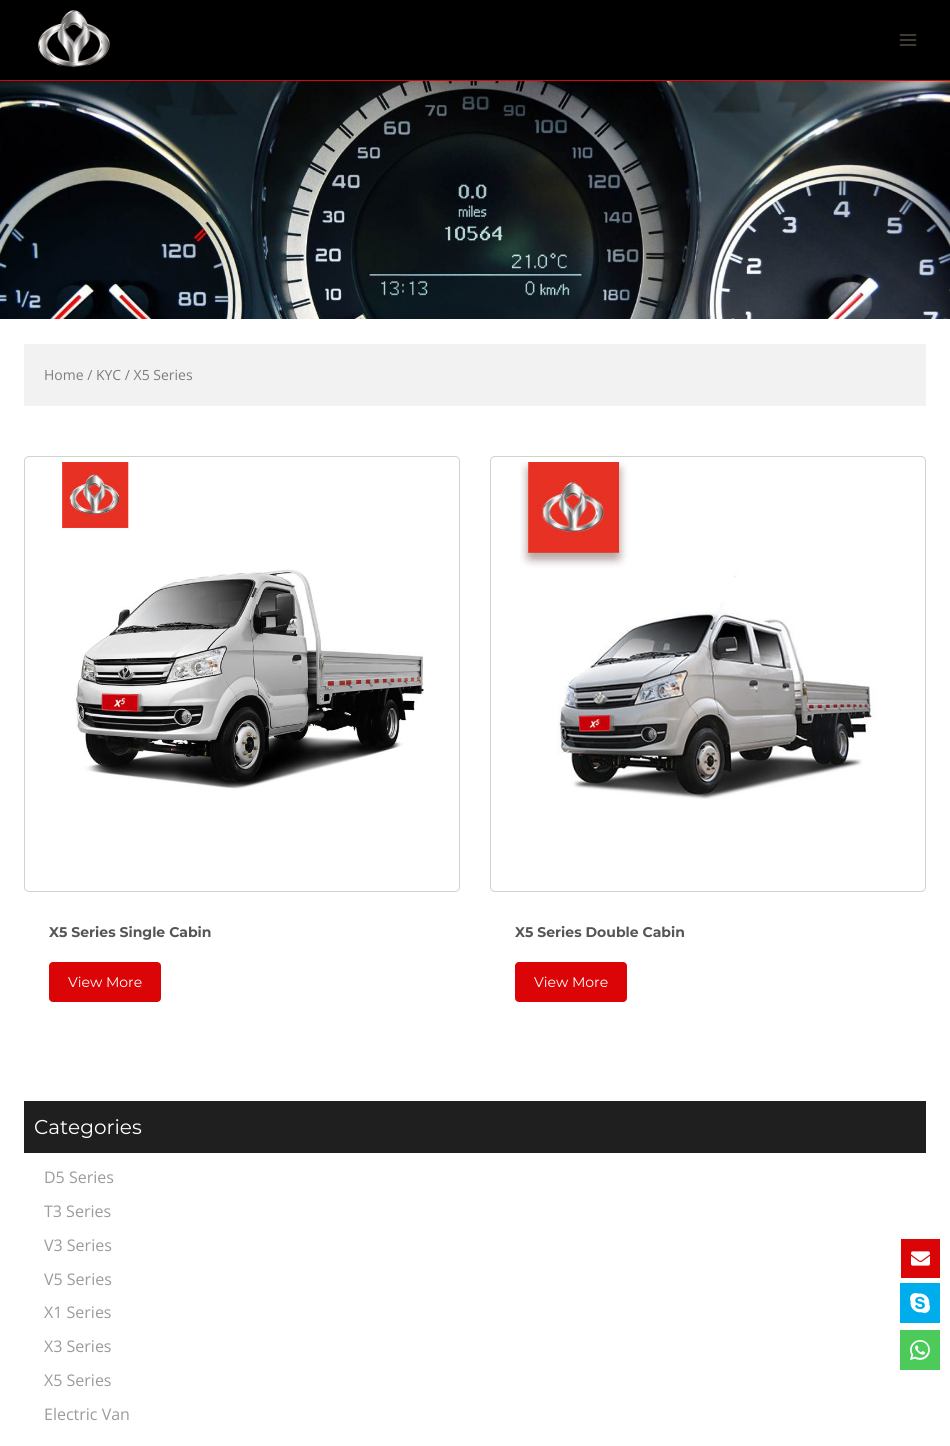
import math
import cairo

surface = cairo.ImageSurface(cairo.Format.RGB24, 950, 1446)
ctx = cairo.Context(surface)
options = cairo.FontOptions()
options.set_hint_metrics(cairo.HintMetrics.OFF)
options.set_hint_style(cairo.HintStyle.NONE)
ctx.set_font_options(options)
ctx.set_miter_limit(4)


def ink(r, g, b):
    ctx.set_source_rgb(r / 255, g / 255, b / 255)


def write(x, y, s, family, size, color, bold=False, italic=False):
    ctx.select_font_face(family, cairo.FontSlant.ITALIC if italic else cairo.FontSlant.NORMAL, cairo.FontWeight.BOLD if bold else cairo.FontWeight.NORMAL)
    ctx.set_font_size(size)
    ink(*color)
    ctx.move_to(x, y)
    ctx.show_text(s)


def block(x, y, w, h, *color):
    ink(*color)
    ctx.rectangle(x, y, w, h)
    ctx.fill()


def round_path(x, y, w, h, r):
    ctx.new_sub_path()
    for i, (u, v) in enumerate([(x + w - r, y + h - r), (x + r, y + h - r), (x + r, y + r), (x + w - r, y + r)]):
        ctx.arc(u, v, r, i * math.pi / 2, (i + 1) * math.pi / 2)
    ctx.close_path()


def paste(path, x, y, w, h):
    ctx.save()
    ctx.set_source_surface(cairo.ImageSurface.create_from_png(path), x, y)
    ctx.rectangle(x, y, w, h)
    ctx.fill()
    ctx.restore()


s1 = dict(family="Open Sans", size=14, color=(125, 125, 125))
s2 = dict(family="Montserrat", size=14, color=(85, 85, 85), bold=True)
s3 = dict(family="Montserrat", size=14, color=(255, 255, 255))
s4 = dict(family="Montserrat", size=20, color=(255, 255, 255))
s5 = dict(family="Open Sans", size=16, color=(155, 155, 155))

ink(255, 255, 255)
ctx.paint()
block(0, 0, 950, 80, 0, 0, 0)
block(0, 80, 950, 1, 219, 5, 7)
paste("pic1.png", 38, 10, 72, 58)
paste("pic2.png", 899, 34, 18, 12)
paste("pic3.png", 0, 81, 950, 238)
block(24, 344, 902, 62, 242, 242, 242)
write(44, 380, "Home / KYC / X5 Series", **s1)
round_path(24.5, 456.5, 435, 435, 4.5)
ink(210, 210, 210)
ctx.set_line_width(1)
ctx.stroke()
paste("pic4.png", 61, 462, 363, 327)
write(49, 937, "X5 Series Single Cabin", **s2)
ink(219, 5, 7)
round_path(49.5, 962.5, 111, 39, 3.5)
ctx.fill_preserve()
ctx.stroke()
write(68, 987, "View More", **s3)
round_path(490.5, 456.5, 435, 435, 4.5)
ink(210, 210, 210)
ctx.stroke()
paste("pic5.png", 520, 462, 356, 337)
write(515, 937, "X5 Series Double Cabin", **s2)
ink(219, 5, 7)
round_path(515.5, 962.5, 111, 39, 3.5)
ctx.fill_preserve()
ctx.stroke()
write(534, 987, "View More", **s3)
block(24, 1101, 902, 52, 31, 31, 31)
write(34, 1134, "Categories", **s4)
write(44, 1183, "D5 Series", **s5)
write(44, 1217, "T3 Series", **s5)
write(44, 1251, "V3 Series", **s5)
write(44, 1285, "V5 Series", **s5)
write(44, 1318, "X1 Series", **s5)
write(44, 1352, "X3 Series", **s5)
write(44, 1386, "X5 Series", **s5)
write(44, 1420, "Electric Van", **s5)
block(901, 1239, 39, 39, 219, 5, 7)
paste("pic6.png", 911, 1251, 19, 15)
paste("pic7.png", 900, 1283, 40, 40)
paste("pic8.png", 900, 1330, 40, 40)
surface.write_to_png("screenshot.png")
